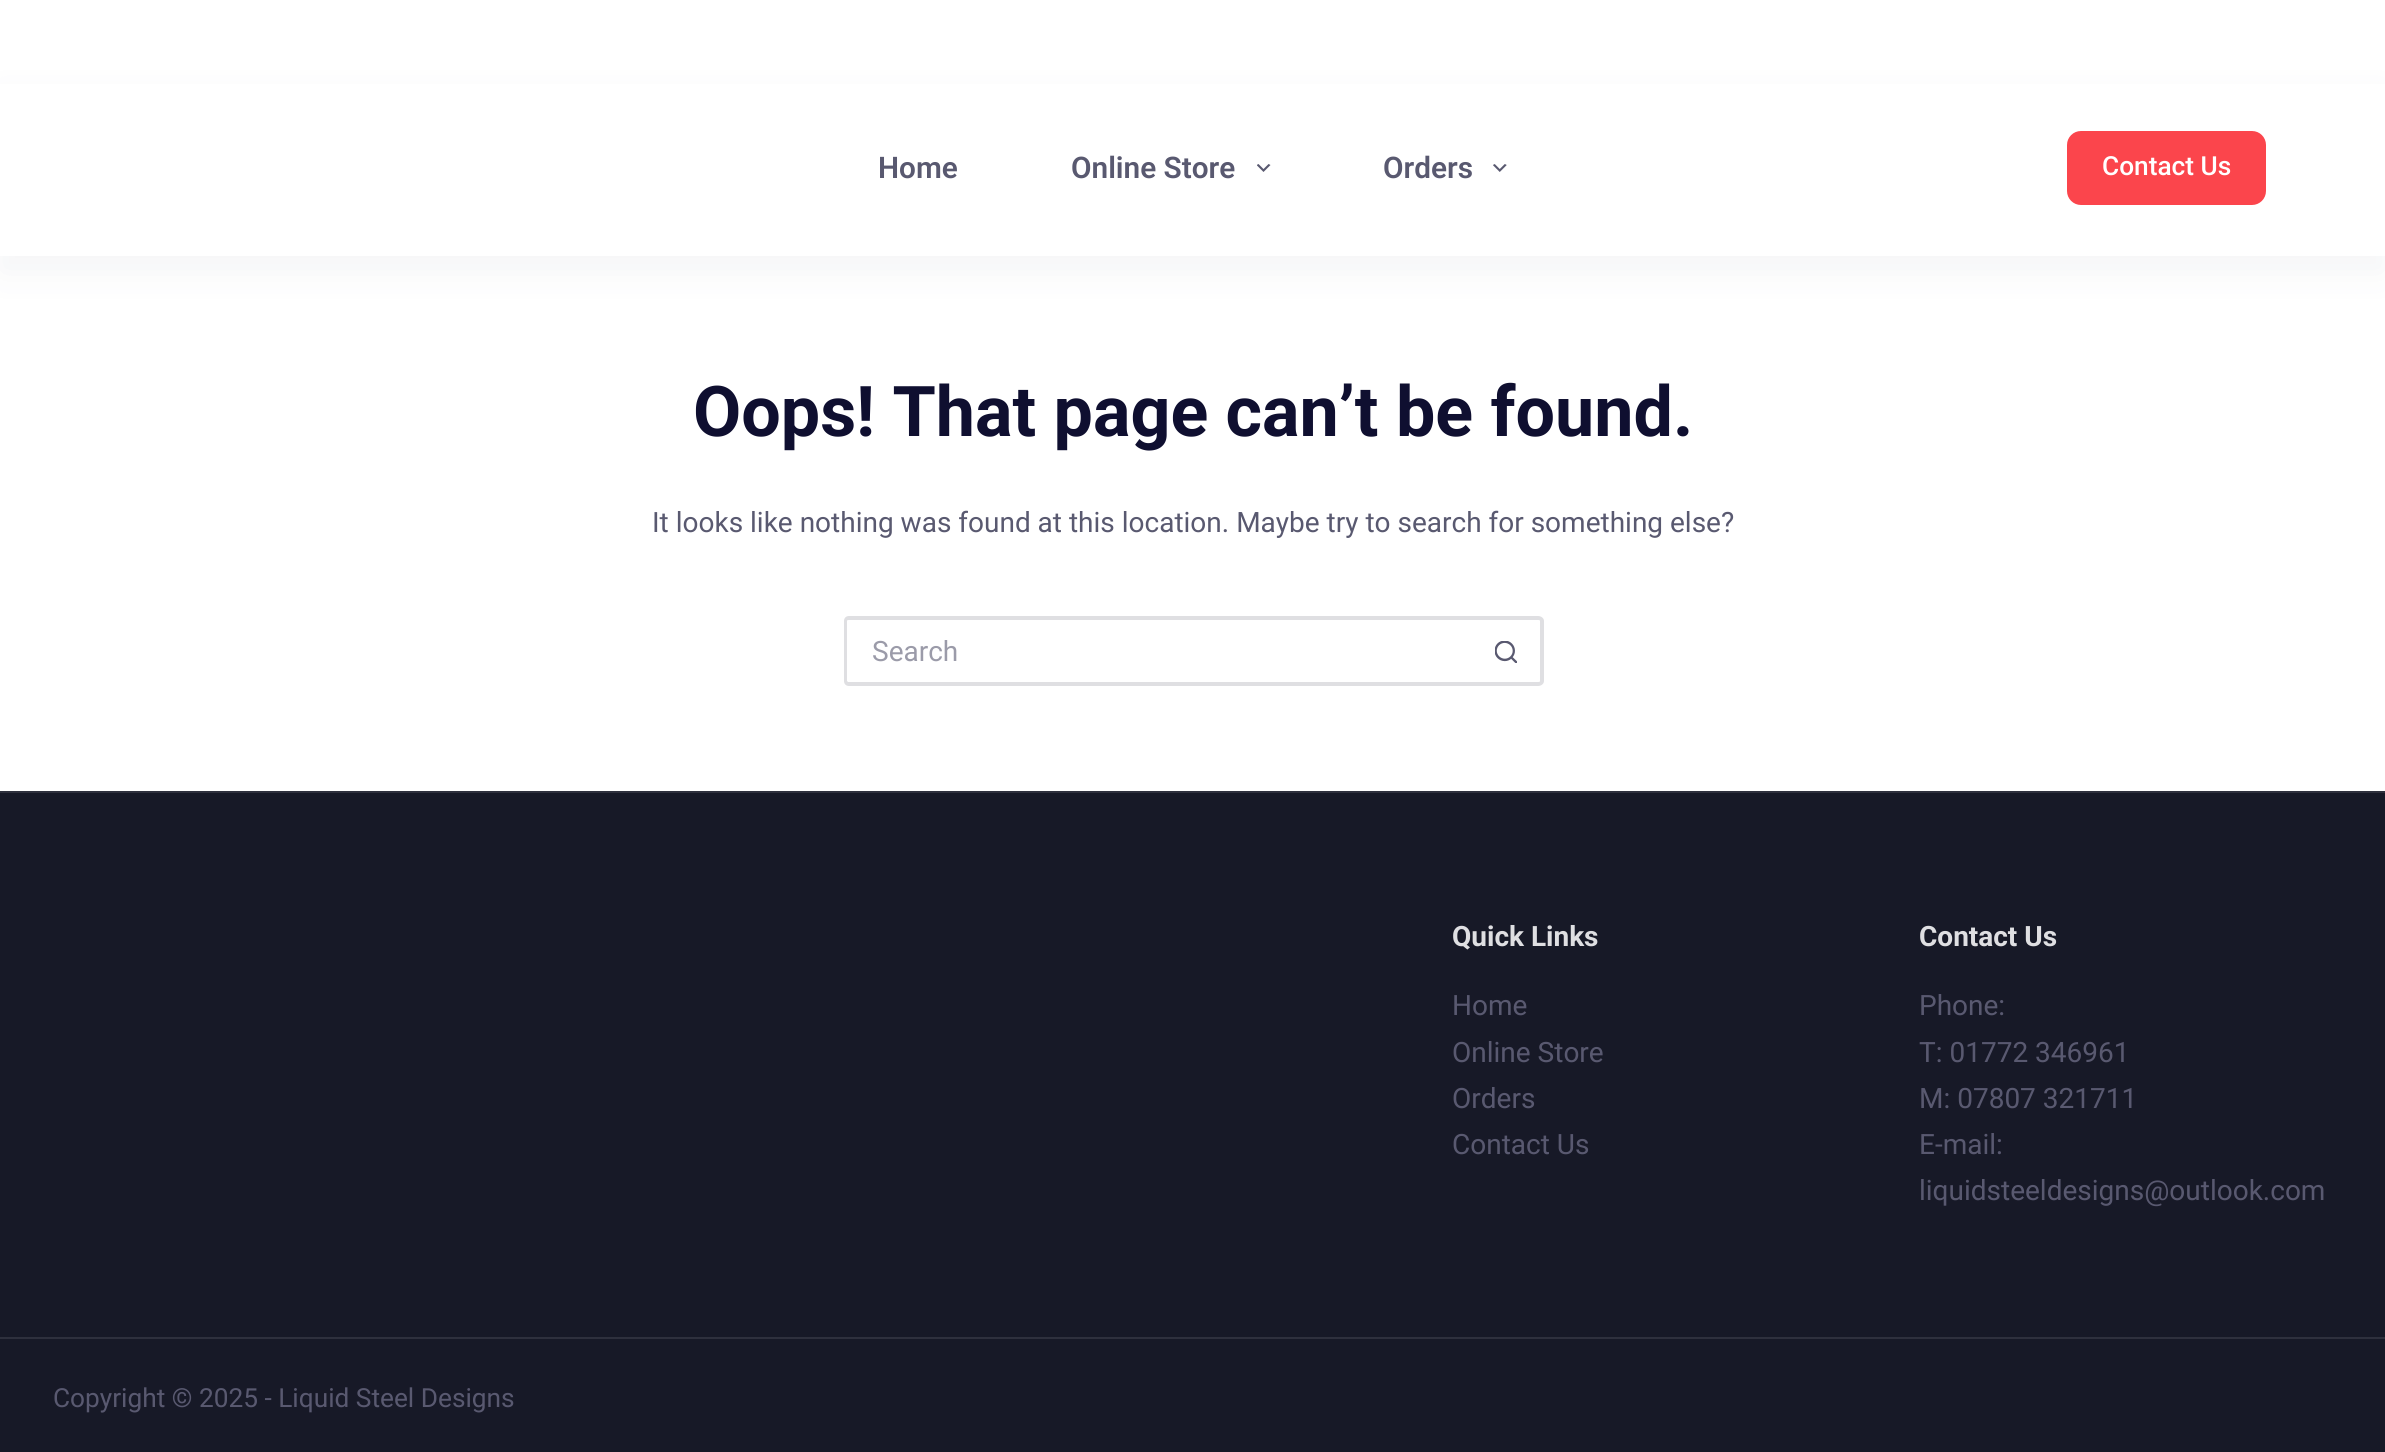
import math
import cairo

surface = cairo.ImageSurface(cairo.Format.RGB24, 2385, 1452)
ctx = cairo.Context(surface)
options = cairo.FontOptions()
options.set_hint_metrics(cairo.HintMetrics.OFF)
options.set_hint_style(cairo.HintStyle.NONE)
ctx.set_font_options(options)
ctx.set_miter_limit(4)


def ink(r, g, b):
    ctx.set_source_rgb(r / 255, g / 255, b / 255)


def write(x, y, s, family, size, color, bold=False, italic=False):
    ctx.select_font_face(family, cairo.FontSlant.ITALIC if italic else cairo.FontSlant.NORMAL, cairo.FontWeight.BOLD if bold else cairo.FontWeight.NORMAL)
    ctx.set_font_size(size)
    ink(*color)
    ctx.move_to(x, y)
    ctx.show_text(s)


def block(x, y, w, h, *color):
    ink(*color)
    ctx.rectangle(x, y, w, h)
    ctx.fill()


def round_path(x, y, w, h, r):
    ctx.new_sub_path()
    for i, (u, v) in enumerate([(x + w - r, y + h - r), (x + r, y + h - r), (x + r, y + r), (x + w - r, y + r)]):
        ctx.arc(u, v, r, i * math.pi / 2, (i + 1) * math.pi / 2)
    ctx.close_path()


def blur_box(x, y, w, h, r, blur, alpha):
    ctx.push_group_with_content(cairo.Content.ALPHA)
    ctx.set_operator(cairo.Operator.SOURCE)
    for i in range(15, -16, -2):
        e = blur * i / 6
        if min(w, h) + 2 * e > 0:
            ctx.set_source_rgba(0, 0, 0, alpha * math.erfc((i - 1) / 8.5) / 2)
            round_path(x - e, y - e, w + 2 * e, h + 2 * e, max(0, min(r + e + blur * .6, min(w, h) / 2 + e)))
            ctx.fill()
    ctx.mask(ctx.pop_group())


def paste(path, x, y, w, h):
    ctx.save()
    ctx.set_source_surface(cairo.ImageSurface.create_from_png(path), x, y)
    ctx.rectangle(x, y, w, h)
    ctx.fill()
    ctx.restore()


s1 = dict(family="Roboto SemiBold", size=29.75, color=(89, 89, 112))
s2 = dict(family="Roboto Medium", size=26.25, color=(255, 255, 255))
s3 = dict(family="Roboto", size=70, color=(15, 15, 48), bold=True)
s4 = dict(family="Roboto", size=28, color=(89, 89, 112))
s5 = dict(family="Roboto", size=28, color=(155, 155, 169))
s6 = dict(family="Roboto", size=28, color=(223, 223, 226), bold=True)
s7 = dict(family="Roboto", size=26.25, color=(89, 89, 112))

ink(255, 255, 255)
ctx.paint()
ink(44, 62, 80)
blur_box(0, 96, 2385, 177, 0, 17.5, 0.05)
block(0, 84, 2385, 172, 255, 255, 255)
write(878, 178, "Home", **s1)
write(1071, 178, "Online Store", **s1)
paste("pic1.png", 1257, 164, 14, 8)
write(1383, 178, "Orders", **s1)
paste("pic2.png", 1493, 164, 14, 8)
ink(251, 69, 76)
round_path(2067, 131, 199, 74, 14)
ctx.fill()
write(2102, 175, "Contact Us", **s2)
write(693, 436, "Oops! That page can’t be found.", **s3)
write(652, 532, "It looks like nothing was found at this location. Maybe try to search for something else?", **s4)
ink(223, 223, 226)
ctx.set_fill_rule(cairo.FillRule.EVEN_ODD)
ctx.new_path()
ctx.move_to(849, 616)
ctx.line_to(1474, 616)
ctx.line_to(1474, 686)
ctx.line_to(849, 686)
ctx.curve_to(846, 686, 844, 684, 844, 681)
ctx.line_to(844, 621)
ctx.curve_to(844, 618, 846, 616, 849, 616)
ctx.close_path()
ctx.move_to(849, 620)
ctx.line_to(1474, 620)
ctx.line_to(1474, 682)
ctx.line_to(848, 682)
ctx.line_to(847, 681)
ctx.line_to(847, 621)
ctx.curve_to(847, 620, 848, 620, 849, 620)
ctx.close_path()
ctx.fill()
write(872, 661, "Search", **s5)
ink(223, 223, 226)
ctx.new_path()
ctx.move_to(1474, 616)
ctx.line_to(1538, 616)
ctx.curve_to(1541, 616, 1544, 618, 1544, 621)
ctx.line_to(1544, 681)
ctx.curve_to(1544, 684, 1541, 686, 1538, 686)
ctx.line_to(1474, 686)
ctx.close_path()
ctx.move_to(1474, 620)
ctx.line_to(1538, 620)
ctx.curve_to(1539, 620, 1540, 620, 1540, 621)
ctx.line_to(1540, 681)
ctx.curve_to(1540, 682, 1539, 682, 1538, 682)
ctx.line_to(1474, 682)
ctx.close_path()
ctx.fill()
paste("pic3.png", 1495, 641, 22, 22)
block(0, 793, 2385, 659, 23, 25, 39)
block(0, 791, 2385, 2, 46, 48, 61)
write(1452, 946, "Quick Links", **s6)
write(1452, 1015, "Home", **s4)
write(1452, 1062, "Online Store", **s4)
write(1452, 1108, "Orders", **s4)
write(1452, 1154, "Contact Us", **s4)
write(1919, 946, "Contact Us", **s6)
write(1919, 1015, "Phone:", **s4)
write(1919, 1062, "T: 01772 346961", **s4)
write(1919, 1108, "M: 07807 321711", **s4)
write(1919, 1154, "E-mail:", **s4)
write(1919, 1200, "liquidsteeldesigns@outlook.com", **s4)
block(0, 1337, 2385, 2, 46, 48, 61)
write(53, 1407, "Copyright © 2025 - Liquid Steel Designs", **s7)
surface.write_to_png("screenshot.png")
